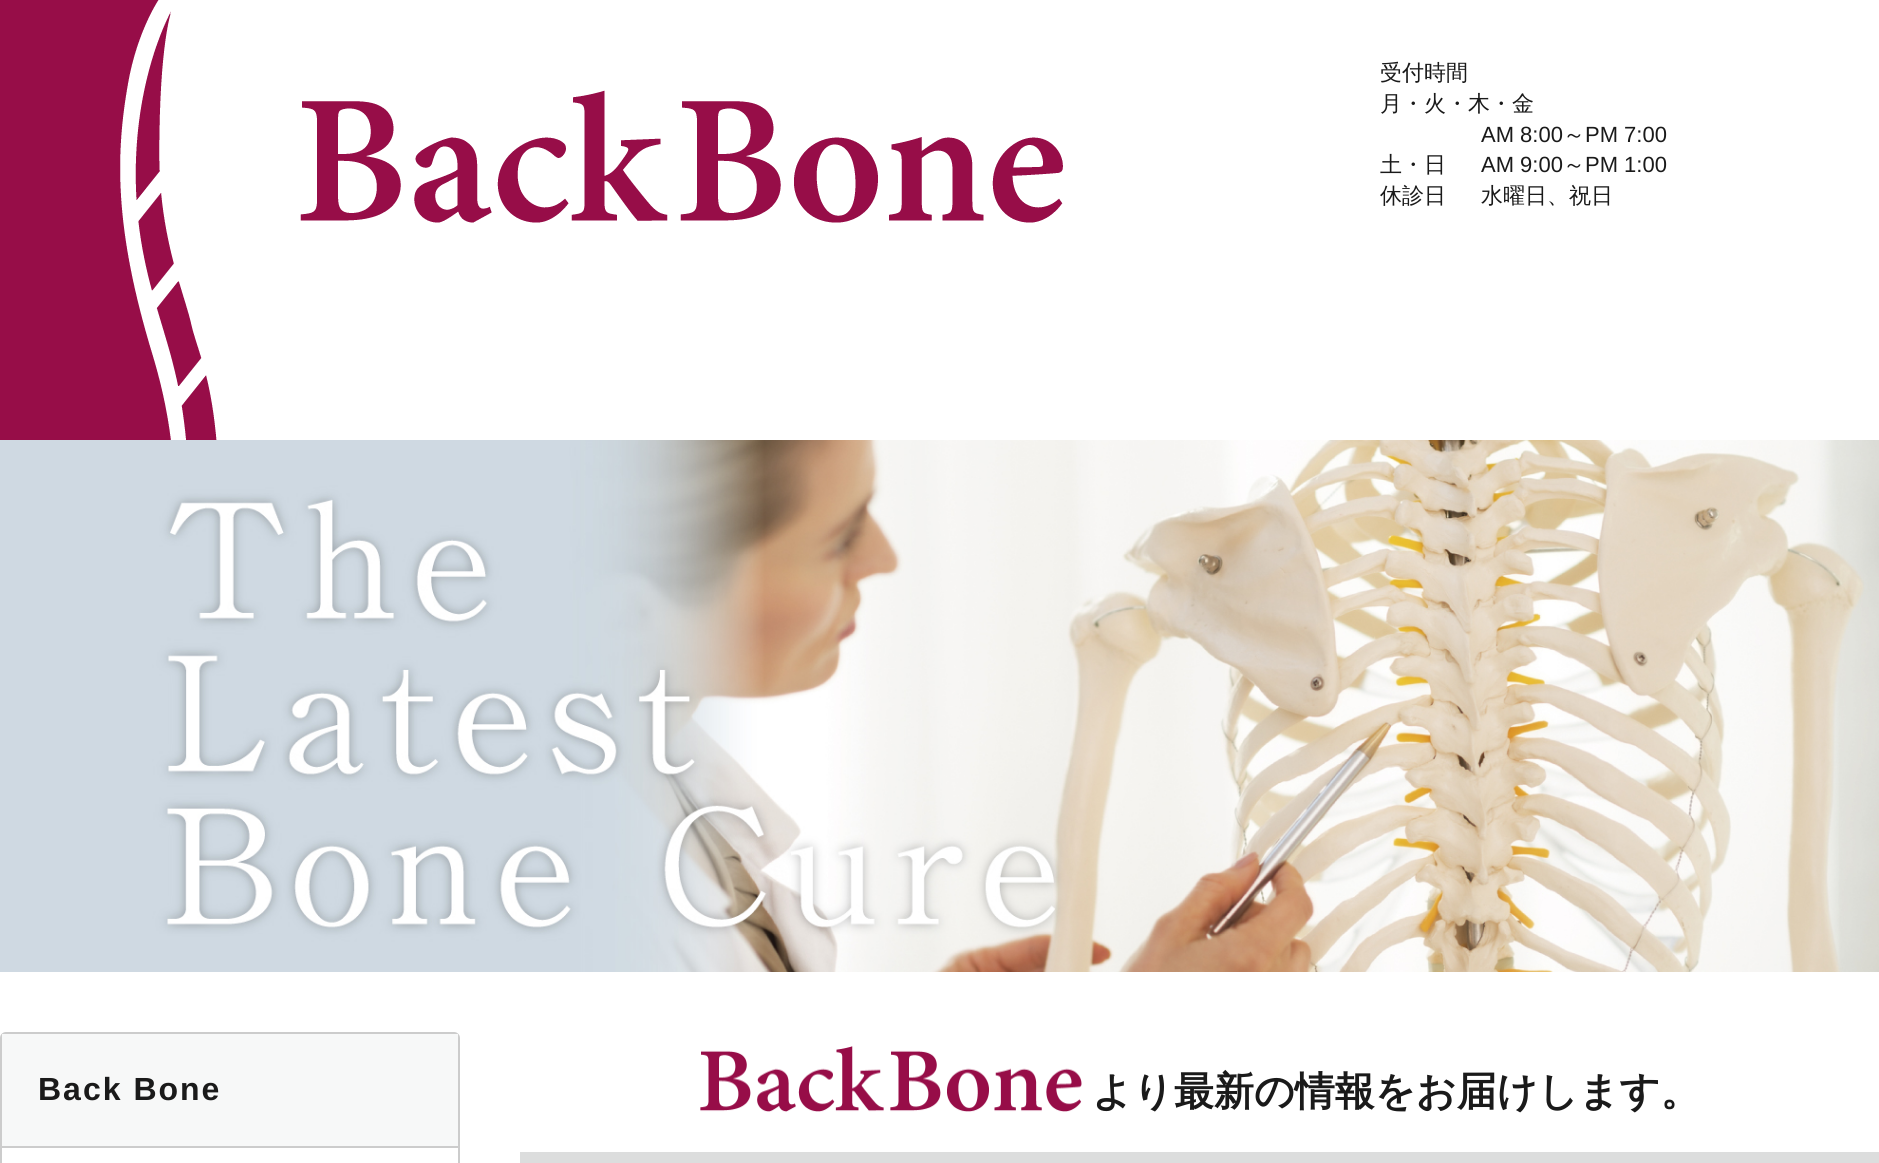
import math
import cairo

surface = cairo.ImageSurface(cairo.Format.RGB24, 1879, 1163)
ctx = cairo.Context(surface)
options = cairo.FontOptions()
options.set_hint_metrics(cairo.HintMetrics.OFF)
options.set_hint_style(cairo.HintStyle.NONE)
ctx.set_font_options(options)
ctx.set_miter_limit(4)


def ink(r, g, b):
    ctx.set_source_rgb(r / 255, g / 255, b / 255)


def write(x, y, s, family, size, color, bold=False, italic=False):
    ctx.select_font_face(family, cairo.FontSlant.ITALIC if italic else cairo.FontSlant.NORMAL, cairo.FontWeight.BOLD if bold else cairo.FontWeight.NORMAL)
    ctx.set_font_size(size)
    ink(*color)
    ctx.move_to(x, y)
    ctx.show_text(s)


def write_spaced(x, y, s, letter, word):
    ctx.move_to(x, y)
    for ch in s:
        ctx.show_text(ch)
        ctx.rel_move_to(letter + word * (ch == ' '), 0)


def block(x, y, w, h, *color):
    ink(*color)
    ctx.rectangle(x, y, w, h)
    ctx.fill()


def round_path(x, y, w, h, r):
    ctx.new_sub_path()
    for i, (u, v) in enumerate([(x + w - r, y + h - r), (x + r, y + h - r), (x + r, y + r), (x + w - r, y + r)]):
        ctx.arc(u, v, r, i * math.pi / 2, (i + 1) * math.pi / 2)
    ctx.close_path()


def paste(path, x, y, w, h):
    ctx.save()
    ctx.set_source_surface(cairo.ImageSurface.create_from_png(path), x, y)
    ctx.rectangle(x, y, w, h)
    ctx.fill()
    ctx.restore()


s1 = dict(family="WenQuanYi Zen Hei Medium", size=22, color=(26, 26, 26))
s2 = dict(family="Liberation Sans", size=22, color=(26, 26, 26))
s3 = dict(family="WenQuanYi Zen Hei", size=40, color=(26, 26, 26), bold=True)

ink(255, 255, 255)
ctx.paint()
paste("pic1.png", 0, 0, 217, 440)
paste("pic2.png", 300, 90, 763, 133)
write(1380, 80, "受付時間", **s1)
write(1380, 111, "月・火・木・金", **s1)
write(1481, 142, "AM 8:00", **s2)
write(1563, 142, "～", **s1)
write(1585, 142, "PM 7:00", **s2)
write(1380, 172, "土・日", **s1)
write(1481, 172, "AM 9:00", **s2)
write(1563, 172, "～", **s1)
write(1585, 172, "PM 1:00", **s2)
write(1380, 203, "休診日", **s1)
write(1481, 203, "水曜日、祝日", **s1)
paste("pic3.png", 0, 440, 1879, 532)
round_path(1, 1033, 458, 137, 5)
ink(204, 204, 204)
ctx.stroke()
block(2, 1034, 456, 112, 247, 248, 248)
block(2, 1146, 456, 2, 204, 204, 204)
ctx.select_font_face("Liberation Sans", cairo.FontSlant.NORMAL, cairo.FontWeight.BOLD)
ctx.set_font_size(32)
ink(26, 26, 26)
write_spaced(38, 1100, "Back Bone", 2, 0)
paste("pic4.png", 700, 1046, 382, 66)
write(1092, 1105, "より最新の情報をお届けします。", **s3)
block(520, 1152, 1359, 11, 220, 221, 221)
surface.write_to_png("screenshot.png")
